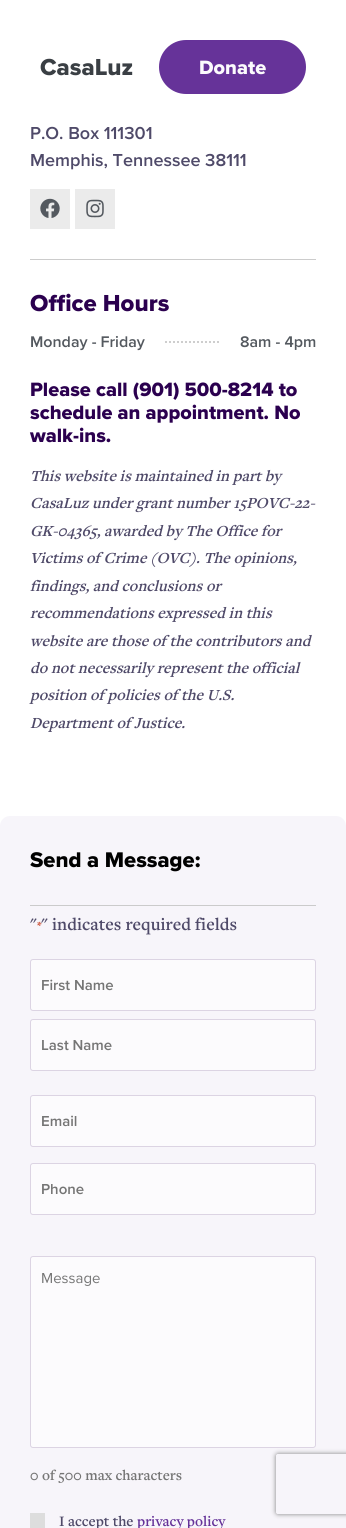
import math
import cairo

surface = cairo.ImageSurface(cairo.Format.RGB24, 346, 1528)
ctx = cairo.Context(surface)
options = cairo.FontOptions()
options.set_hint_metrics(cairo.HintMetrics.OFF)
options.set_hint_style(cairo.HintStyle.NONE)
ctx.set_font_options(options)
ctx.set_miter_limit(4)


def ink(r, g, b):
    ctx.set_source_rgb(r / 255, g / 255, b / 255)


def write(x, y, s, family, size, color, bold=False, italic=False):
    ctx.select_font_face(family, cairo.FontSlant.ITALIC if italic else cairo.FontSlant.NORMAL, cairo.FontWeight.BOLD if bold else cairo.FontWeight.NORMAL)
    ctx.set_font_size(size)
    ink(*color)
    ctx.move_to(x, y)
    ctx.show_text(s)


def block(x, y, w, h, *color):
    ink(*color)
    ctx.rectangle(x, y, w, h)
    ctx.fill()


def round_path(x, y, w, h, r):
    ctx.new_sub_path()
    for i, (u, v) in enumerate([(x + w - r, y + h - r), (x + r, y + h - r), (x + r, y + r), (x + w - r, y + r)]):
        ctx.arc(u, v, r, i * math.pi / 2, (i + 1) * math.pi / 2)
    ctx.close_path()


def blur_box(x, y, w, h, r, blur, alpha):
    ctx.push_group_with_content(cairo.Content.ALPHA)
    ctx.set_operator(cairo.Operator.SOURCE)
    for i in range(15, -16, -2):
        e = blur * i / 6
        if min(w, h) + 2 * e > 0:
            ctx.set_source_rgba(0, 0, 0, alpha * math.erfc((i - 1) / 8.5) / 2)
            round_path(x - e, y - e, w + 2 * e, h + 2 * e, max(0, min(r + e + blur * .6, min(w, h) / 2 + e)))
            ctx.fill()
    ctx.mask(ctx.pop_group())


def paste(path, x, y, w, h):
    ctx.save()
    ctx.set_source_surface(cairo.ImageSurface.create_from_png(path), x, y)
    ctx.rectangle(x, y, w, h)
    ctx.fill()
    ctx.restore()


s1 = dict(family="Proxima Nova ExtraBold", size=24, color=(58, 63, 68))
s2 = dict(family="Proxima Nova ExtraBold", size=20, color=(252, 251, 253))
s3 = dict(family="Proxima Nova SemiBold", size=18, color=(79, 74, 105))
s4 = dict(family="Proxima Nova ExtraBold", size=24, color=(43, 0, 79))
s5 = dict(family="Proxima Nova SemiBold", size=16, color=(84, 89, 95))
s6 = dict(family="Proxima Nova ExtraBold", size=20, color=(43, 0, 79))
s7 = dict(family="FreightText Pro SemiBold", size=16, color=(79, 74, 105), italic=True)
s8 = dict(family="Proxima Nova ExtraBold", size=22, color=(0, 0, 0))
s9 = dict(family="FreightText Pro SemiBold", size=18, color=(79, 74, 105))
s10 = dict(family="FreightText Pro SemiBold", size=13, color=(192, 43, 10))
s11 = dict(family="Proxima Nova SemiBold", size=15, color=(117, 117, 117))
s12 = dict(family="Proxima Nova", size=15, color=(117, 117, 117))
s13 = dict(family="FreightText Pro SemiBold", size=15, color=(117, 117, 117))
s14 = dict(family="FreightText Pro SemiBold", size=15, color=(79, 74, 105))
s15 = dict(family="FreightText Pro SemiBold", size=15, color=(102, 51, 153))

ink(255, 255, 255)
ctx.paint()
write(40, 75, "CasaLuz", **s1)
ink(102, 51, 153)
round_path(159, 40, 147, 54, 27)
ctx.fill()
write(199, 74, "Donate", **s2)
write(30, 139, "P.O. Box 111301", **s3)
write(30, 166, "Memphis, Tennessee 38111", **s3)
block(30, 189, 40, 40, 235, 235, 235)
paste("pic1.png", 40, 198, 20, 20)
block(75, 189, 40, 40, 235, 235, 235)
paste("pic2.png", 86, 199, 18, 19)
block(30, 259, 286, 1, 204, 204, 204)
write(30, 311, "Office Hours", **s4)
write(30, 347, "Monday - Friday", **s5)
ctx.new_path()
ctx.move_to(165, 342)
ctx.line_to(220, 342)
ink(206, 206, 206)
ctx.set_dash([2, 2])
ctx.stroke()
write(240, 347, "8am - 4pm", **s5)
write(30, 396, "Please call (901) 500-8214 to", **s6)
write(30, 419, "schedule an appointment. No", **s6)
write(30, 442, "walk-ins.", **s6)
write(30, 481, "This website is maintained in part by", **s7)
write(30, 508, "CasaLuz under grant number 15POVC-22-", **s7)
write(30, 536, "GK-04365, awarded by The Office for", **s7)
write(30, 563, "Victims of Crime (OVC). The opinions,", **s7)
write(30, 591, "findings, and conclusions or", **s7)
write(30, 618, "recommendations expressed in this", **s7)
write(30, 646, "website are those of the contributors and", **s7)
write(30, 673, "do not necessarily represent the official", **s7)
write(30, 700, "position of policies of the U.S.", **s7)
write(30, 728, "Department of Justice.", **s7)
ink(247, 245, 250)
round_path(0, 816, 346, 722, 10)
ctx.fill()
write(30, 867, "Send a Message:", **s8)
block(30, 905, 286, 1, 203, 203, 203)
write(30, 930, "\"", **s9)
write(37, 930, "*", **s10)
write(41, 930, "\" indicates required fields", **s9)
ink(252, 251, 253)
round_path(30, 959, 286, 52, 3)
ctx.fill()
round_path(30.5, 959.5, 285, 51, 2.5)
ctx.set_source_rgba(0.302, 0.149, 0.451, 0.18)
ctx.set_line_width(1)
ctx.set_dash([])
ctx.stroke()
write(41, 990, "First Name", **s11)
ink(252, 251, 253)
round_path(30, 1019, 286, 52, 3)
ctx.fill()
round_path(30.5, 1019.5, 285, 51, 2.5)
ctx.set_source_rgba(0.302, 0.149, 0.451, 0.18)
ctx.stroke()
write(41, 1050, "Last Name", **s11)
ink(252, 251, 253)
round_path(30, 1095, 286, 52, 3)
ctx.fill()
round_path(30.5, 1095.5, 285, 51, 2.5)
ctx.set_source_rgba(0.302, 0.149, 0.451, 0.18)
ctx.stroke()
write(41, 1126, "Email", **s11)
ink(252, 251, 253)
round_path(30, 1163, 286, 52, 3)
ctx.fill()
round_path(30.5, 1163.5, 285, 51, 2.5)
ctx.set_source_rgba(0.302, 0.149, 0.451, 0.18)
ctx.stroke()
write(41, 1194, "Phone", **s11)
ink(252, 251, 253)
round_path(30, 1256, 286, 192, 3)
ctx.fill()
round_path(30.5, 1256.5, 285, 191, 2.5)
ctx.set_source_rgba(0.302, 0.149, 0.451, 0.18)
ctx.stroke()
write(41, 1283, "Message", **s12)
write(30, 1480, "0 of 500 max characters", **s13)
ctx.save()
ctx.set_fill_rule(cairo.FillRule.EVEN_ODD)
ctx.new_path()
ctx.move_to(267, 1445)
ctx.line_to(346, 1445)
ctx.line_to(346, 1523)
ctx.line_to(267, 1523)
ctx.close_path()
ctx.move_to(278, 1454)
ctx.line_to(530, 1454)
ctx.curve_to(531, 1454, 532, 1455, 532, 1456)
ctx.line_to(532, 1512)
ctx.curve_to(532, 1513, 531, 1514, 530, 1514)
ctx.line_to(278, 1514)
ctx.curve_to(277, 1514, 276, 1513, 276, 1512)
ctx.line_to(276, 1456)
ctx.curve_to(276, 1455, 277, 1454, 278, 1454)
ctx.close_path()
ctx.clip()
ink(128, 128, 128)
blur_box(276, 1454, 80, 60, 2, 2.5, 1)
ctx.restore()
block(30, 1513, 15, 15, 221, 221, 221)
write(59, 1526, "I accept the", **s14)
write(137, 1526, "privacy policy", **s15)
surface.write_to_png("screenshot.png")
